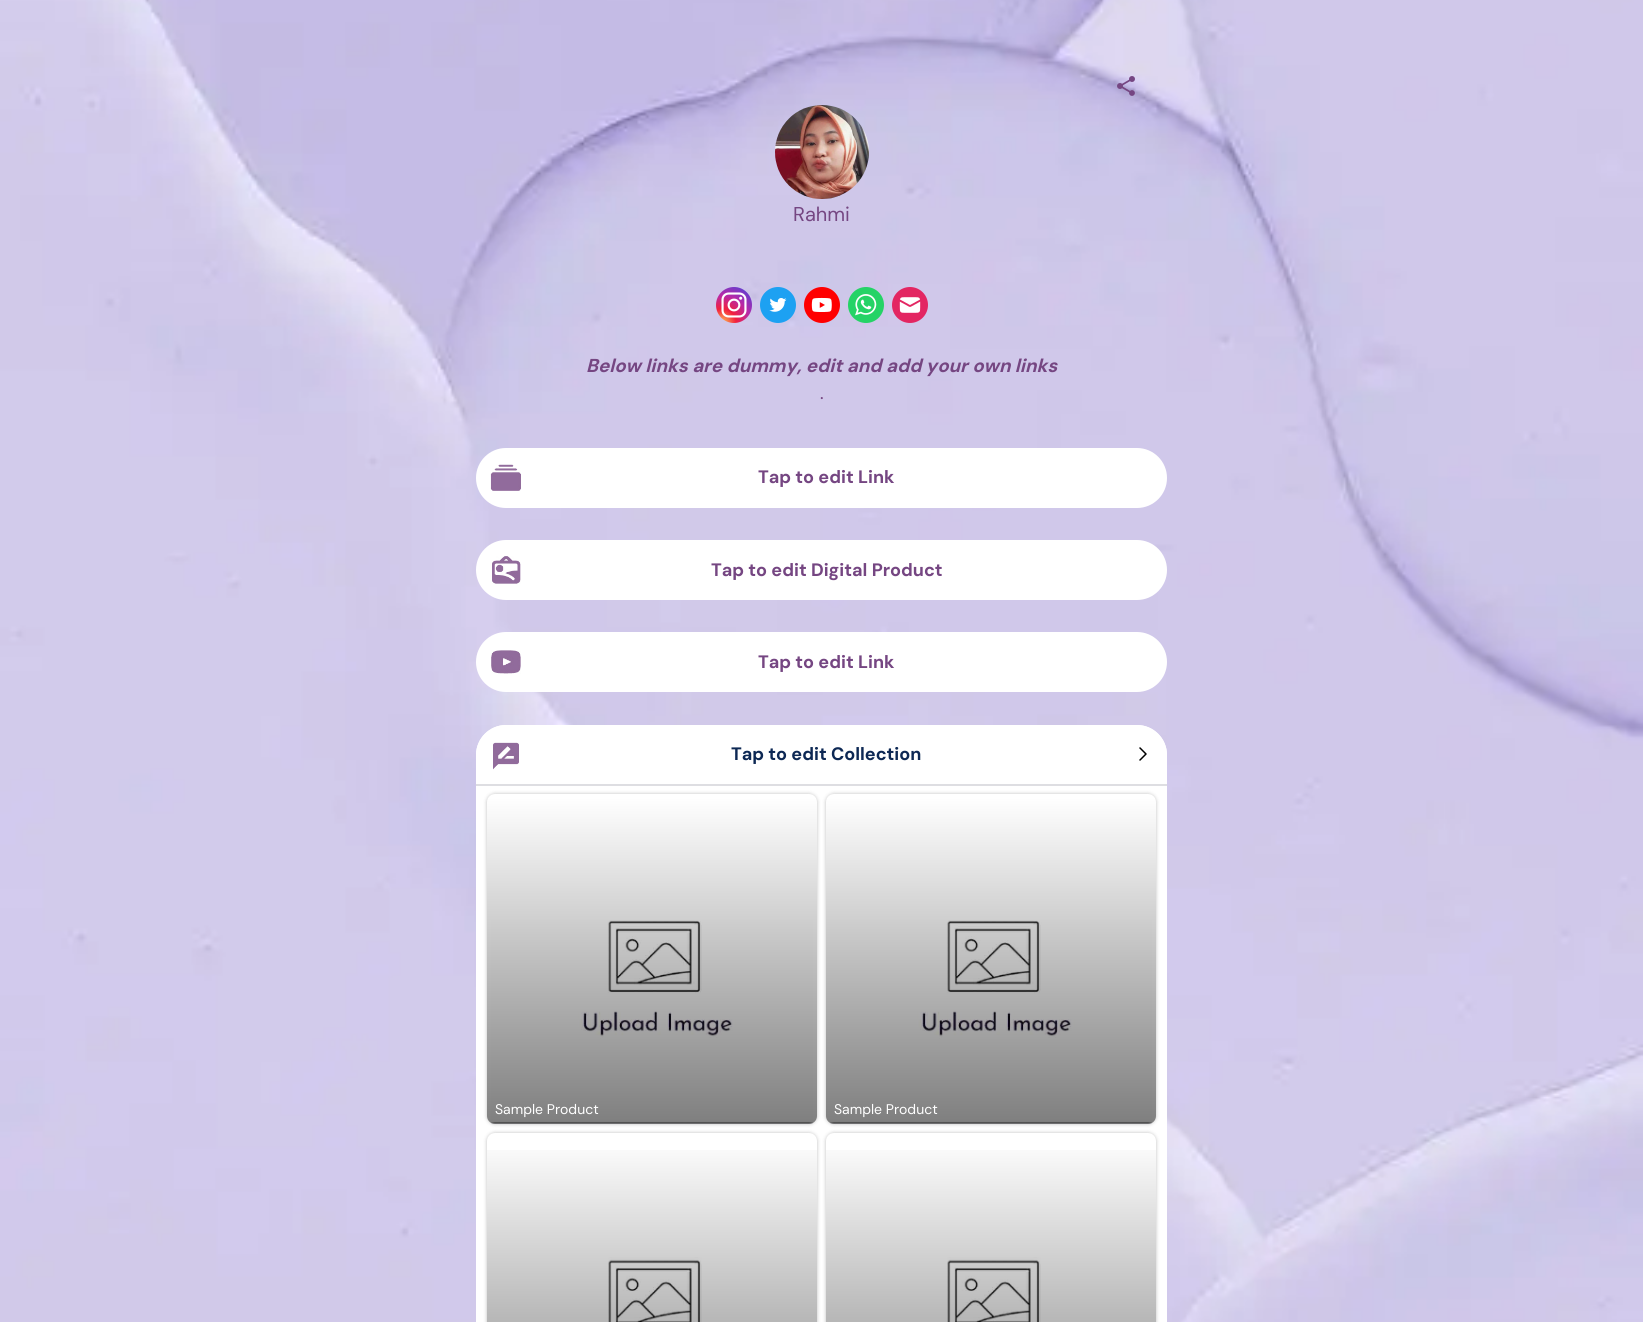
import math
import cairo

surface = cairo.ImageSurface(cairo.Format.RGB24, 1643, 1322)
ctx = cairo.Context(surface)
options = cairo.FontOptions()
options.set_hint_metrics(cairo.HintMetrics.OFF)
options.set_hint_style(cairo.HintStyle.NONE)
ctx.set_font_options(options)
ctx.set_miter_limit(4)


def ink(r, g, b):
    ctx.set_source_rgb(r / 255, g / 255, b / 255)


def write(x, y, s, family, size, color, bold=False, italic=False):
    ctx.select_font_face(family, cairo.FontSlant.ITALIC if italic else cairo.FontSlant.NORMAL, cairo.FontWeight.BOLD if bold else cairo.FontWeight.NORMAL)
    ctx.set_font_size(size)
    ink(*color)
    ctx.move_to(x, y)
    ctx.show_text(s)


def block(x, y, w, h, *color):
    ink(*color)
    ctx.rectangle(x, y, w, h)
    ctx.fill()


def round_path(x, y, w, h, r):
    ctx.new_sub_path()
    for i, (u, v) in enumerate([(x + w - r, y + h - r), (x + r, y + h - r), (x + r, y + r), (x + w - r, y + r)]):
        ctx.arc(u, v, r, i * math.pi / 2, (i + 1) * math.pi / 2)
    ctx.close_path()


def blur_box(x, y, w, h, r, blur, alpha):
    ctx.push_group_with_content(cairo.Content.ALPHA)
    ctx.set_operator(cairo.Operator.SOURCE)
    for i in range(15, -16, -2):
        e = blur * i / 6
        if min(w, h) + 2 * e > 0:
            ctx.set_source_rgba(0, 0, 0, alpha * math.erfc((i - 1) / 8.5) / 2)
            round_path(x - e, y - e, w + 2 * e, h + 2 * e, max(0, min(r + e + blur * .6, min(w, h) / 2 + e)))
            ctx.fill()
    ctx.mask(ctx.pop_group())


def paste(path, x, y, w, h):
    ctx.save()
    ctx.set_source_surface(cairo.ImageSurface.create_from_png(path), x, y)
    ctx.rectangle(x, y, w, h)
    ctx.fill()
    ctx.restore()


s1 = dict(family="DM Sans", size=20, color=(117, 70, 130))
s2 = dict(family="DM Sans", size=18.7, color=(117, 70, 130), bold=True, italic=True)
s3 = dict(family="DM Sans", size=18, color=(117, 70, 130))
s4 = dict(family="DM Sans", size=18, color=(117, 70, 130), bold=True)
s5 = dict(family="DM Sans", size=18, color=(13, 40, 84), bold=True)
s6 = dict(family="DM Sans", size=14, color=(255, 255, 255))

ink(255, 255, 255)
ctx.paint()
paste("pic1.png", 0, 0, 1643, 1322)
paste("pic2.png", 1117, 76, 18, 20)
paste("pic3.png", 775, 105, 94, 94)
write(793, 221, "Rahmi", **s1)
paste("pic4.png", 716, 287, 36, 36)
paste("pic5.png", 760, 287, 36, 36)
paste("pic6.png", 804, 287, 36, 36)
paste("pic7.png", 848, 287, 36, 36)
paste("pic8.png", 892, 287, 36, 36)
write(586, 372, "Below links are dummy, edit and add your own links", **s2)
write(820, 399, ".", **s3)
ink(255, 255, 255)
round_path(476, 448, 691, 60, 30)
ctx.fill()
paste("pic9.png", 490, 464, 31, 27)
write(758, 483, "Tap to edit Link", **s4)
ink(255, 255, 255)
round_path(476, 540, 691, 60, 30)
ctx.fill()
paste("pic10.png", 492, 556, 29, 28)
write(711, 576, "Tap to edit Digital Product", **s4)
ink(255, 255, 255)
round_path(476, 632, 691, 60, 30)
ctx.fill()
paste("pic11.png", 491, 650, 30, 24)
write(758, 668, "Tap to edit Link", **s4)
ink(255, 255, 255)
round_path(476, 725, 691, 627, 30)
ctx.fill()
ctx.new_path()
ctx.move_to(506, 725)
ctx.line_to(1137, 725)
ctx.curve_to(1153.5, 725, 1167, 738.5, 1167, 755)
ctx.line_to(1167, 786)
ctx.line_to(476, 786)
ctx.line_to(476, 755)
ctx.curve_to(476, 738.5, 489.5, 725, 506, 725)
ctx.close_path()
ctx.fill()
block(476, 784, 691, 2, 222, 222, 226)
paste("pic12.png", 493, 742, 26, 28)
write(731, 760, "Tap to edit Collection", **s5)
ctx.new_path()
ctx.move_to(1140, 748)
ctx.line_to(1146, 754)
ctx.line_to(1140, 760)
ink(0, 0, 0)
ctx.set_line_width(1.5)
ctx.set_line_cap(cairo.LineCap.ROUND)
ctx.set_line_join(cairo.LineJoin.ROUND)
ctx.stroke()
ink(0, 0, 0)
blur_box(487, 794, 330, 330, 8, 2, 0.25)
ink(255, 255, 255)
round_path(487, 794, 330, 330, 8)
ctx.fill()
block(491, 1123, 322, 1, 222, 222, 226)
paste("pic13.png", 491, 920, 322, 203)
gradient = cairo.LinearGradient(652, 794, 652, 1124)
gradient.add_color_stop_rgba(0.01, 0, 0, 0, 0)
gradient.add_color_stop_rgba(1, 0, 0, 0, 0.5)
ctx.set_source(gradient)
round_path(487, 794, 330, 330, 8)
ctx.fill()
write(495, 1114, "Sample Product", **s6)
ink(0, 0, 0)
blur_box(826, 794, 330, 330, 8, 2, 0.25)
ink(255, 255, 255)
round_path(826, 794, 330, 330, 8)
ctx.fill()
block(830, 1123, 322, 1, 222, 222, 226)
paste("pic13.png", 830, 920, 322, 203)
gradient = cairo.LinearGradient(991, 794, 991, 1124)
gradient.add_color_stop_rgba(0.01, 0, 0, 0, 0)
gradient.add_color_stop_rgba(1, 0, 0, 0, 0.5)
ctx.set_source(gradient)
round_path(826, 794, 330, 330, 8)
ctx.fill()
write(834, 1114, "Sample Product", **s6)
ink(0, 0, 0)
blur_box(487, 1133, 330, 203, 8, 2, 0.25)
ink(255, 255, 255)
round_path(487, 1133, 330, 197, 8)
ctx.fill()
paste("pic14.png", 608, 1257, 94, 65)
gradient = cairo.LinearGradient(652, 1133, 652, 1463)
gradient.add_color_stop_rgba(0.01, 0, 0, 0, 0)
gradient.add_color_stop_rgba(1, 0, 0, 0, 0.5)
ctx.set_source(gradient)
ctx.rectangle(487, 1150, 330, 172)
ctx.fill()
ink(0, 0, 0)
blur_box(826, 1133, 330, 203, 8, 2, 0.25)
ink(255, 255, 255)
round_path(826, 1133, 330, 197, 8)
ctx.fill()
paste("pic14.png", 947, 1257, 94, 65)
gradient = cairo.LinearGradient(991, 1133, 991, 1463)
gradient.add_color_stop_rgba(0.01, 0, 0, 0, 0)
gradient.add_color_stop_rgba(1, 0, 0, 0, 0.5)
ctx.set_source(gradient)
ctx.rectangle(826, 1150, 330, 172)
ctx.fill()
surface.write_to_png("screenshot.png")
